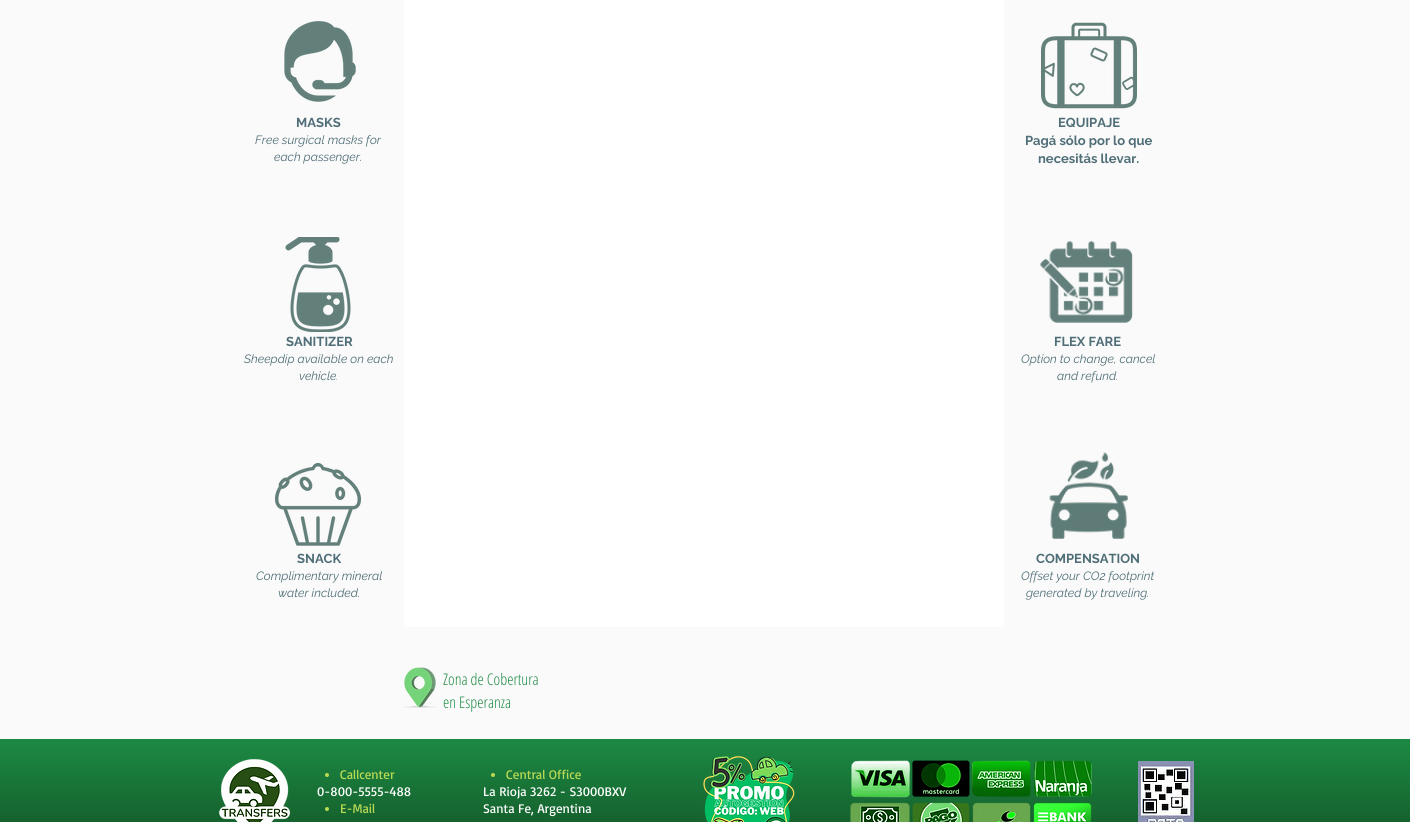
import math
import cairo

surface = cairo.ImageSurface(cairo.Format.RGB24, 1410, 822)
ctx = cairo.Context(surface)
options = cairo.FontOptions()
options.set_hint_metrics(cairo.HintMetrics.OFF)
options.set_hint_style(cairo.HintStyle.NONE)
ctx.set_font_options(options)
ctx.set_miter_limit(4)


def ink(r, g, b):
    ctx.set_source_rgb(r / 255, g / 255, b / 255)


def write(x, y, s, family, size, color, bold=False, italic=False):
    ctx.select_font_face(family, cairo.FontSlant.ITALIC if italic else cairo.FontSlant.NORMAL, cairo.FontWeight.BOLD if bold else cairo.FontWeight.NORMAL)
    ctx.set_font_size(size)
    ink(*color)
    ctx.move_to(x, y)
    ctx.show_text(s)


def block(x, y, w, h, *color):
    ink(*color)
    ctx.rectangle(x, y, w, h)
    ctx.fill()


def paste(path, x, y, w, h):
    ctx.save()
    ctx.set_source_surface(cairo.ImageSurface.create_from_png(path), x, y)
    ctx.rectangle(x, y, w, h)
    ctx.fill()
    ctx.restore()


s1 = dict(family="Raleway", size=13, color=(79, 110, 119), bold=True)
s2 = dict(family="Raleway", size=12, color=(79, 110, 119), italic=True)
s3 = dict(family="Open Sans Condensed Light", size=16, color=(28, 138, 67))
s4 = dict(family="Basic", size=13, color=(186, 218, 85))
s5 = dict(family="Basic", size=13, color=(255, 255, 255))

ink(250, 250, 250)
ctx.paint()
block(404, 0, 600, 627, 255, 255, 255)
paste("pic1.png", 284, 21, 72, 81)
paste("pic2.png", 1041, 22, 96, 87)
write(296, 127, "MASKS", **s1)
write(255, 144, "Free surgical masks for", **s2)
write(274, 161, "each passenger.", **s2)
write(1058, 127, "EQUIPAJE", **s1)
write(1025, 145, "Pagá sólo por lo que", **s1)
write(1038, 163, "necesitás llevar.", **s1)
paste("pic3.png", 285, 237, 66, 95)
paste("pic4.png", 1040, 241, 93, 82)
write(286, 346, "SANITIZER", **s1)
write(244, 363, "Sheepdip available on each", **s2)
write(299, 380, "vehicle.", **s2)
write(1054, 346, "FLEX FARE", **s1)
write(1021, 363, "Option to change, cancel", **s2)
write(1057, 380, "and refund.", **s2)
paste("pic5.png", 275, 463, 86, 83)
paste("pic6.png", 1049, 452, 79, 87)
write(297, 563, "SNACK", **s1)
write(256, 580, "Complimentary mineral", **s2)
write(278, 597, "water included.", **s2)
write(1036, 563, "COMPENSATION", **s1)
write(1021, 580, "Offset your CO2 footprint", **s2)
write(1026, 597, "generated by traveling.", **s2)
paste("pic7.png", 404, 667, 32, 41)
write(443, 685, "Zona de Cobertura", **s3)
write(443, 708, "en Esperanza", **s3)
gradient = cairo.LinearGradient(705, 739, 705, 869)
gradient.add_color_stop_rgba(0, 0.11, 0.541, 0.263, 1)
gradient.add_color_stop_rgba(1, 0.067, 0.298, 0.133, 1)
ctx.set_source(gradient)
ctx.rectangle(0, 739, 1410, 83)
ctx.fill()
paste("pic8.png", 219, 759, 72, 63)
ink(186, 218, 85)
ctx.arc(327, 775, 2, 0, 2 * math.pi)
ctx.fill()
write(340, 779, "Callcenter", **s4)
write(317, 796, "0-800-5555-488", **s5)
ink(186, 218, 85)
ctx.new_path()
ctx.arc(327, 809, 2, 0, 2 * math.pi)
ctx.fill()
write(340, 813, "E-Mail", **s4)
ctx.new_path()
ctx.arc(493, 775, 2, 0, 2 * math.pi)
ctx.fill()
write(506, 779, "Central Office", **s4)
write(483, 796, "La Rioja 3262 - S3000BXV", **s5)
write(483, 813, "Santa Fe, Argentina", **s5)
paste("pic9.png", 703, 756, 92, 66)
paste("pic10.png", 850, 760, 242, 62)
paste("pic11.png", 1138, 761, 56, 61)
surface.write_to_png("screenshot.png")
